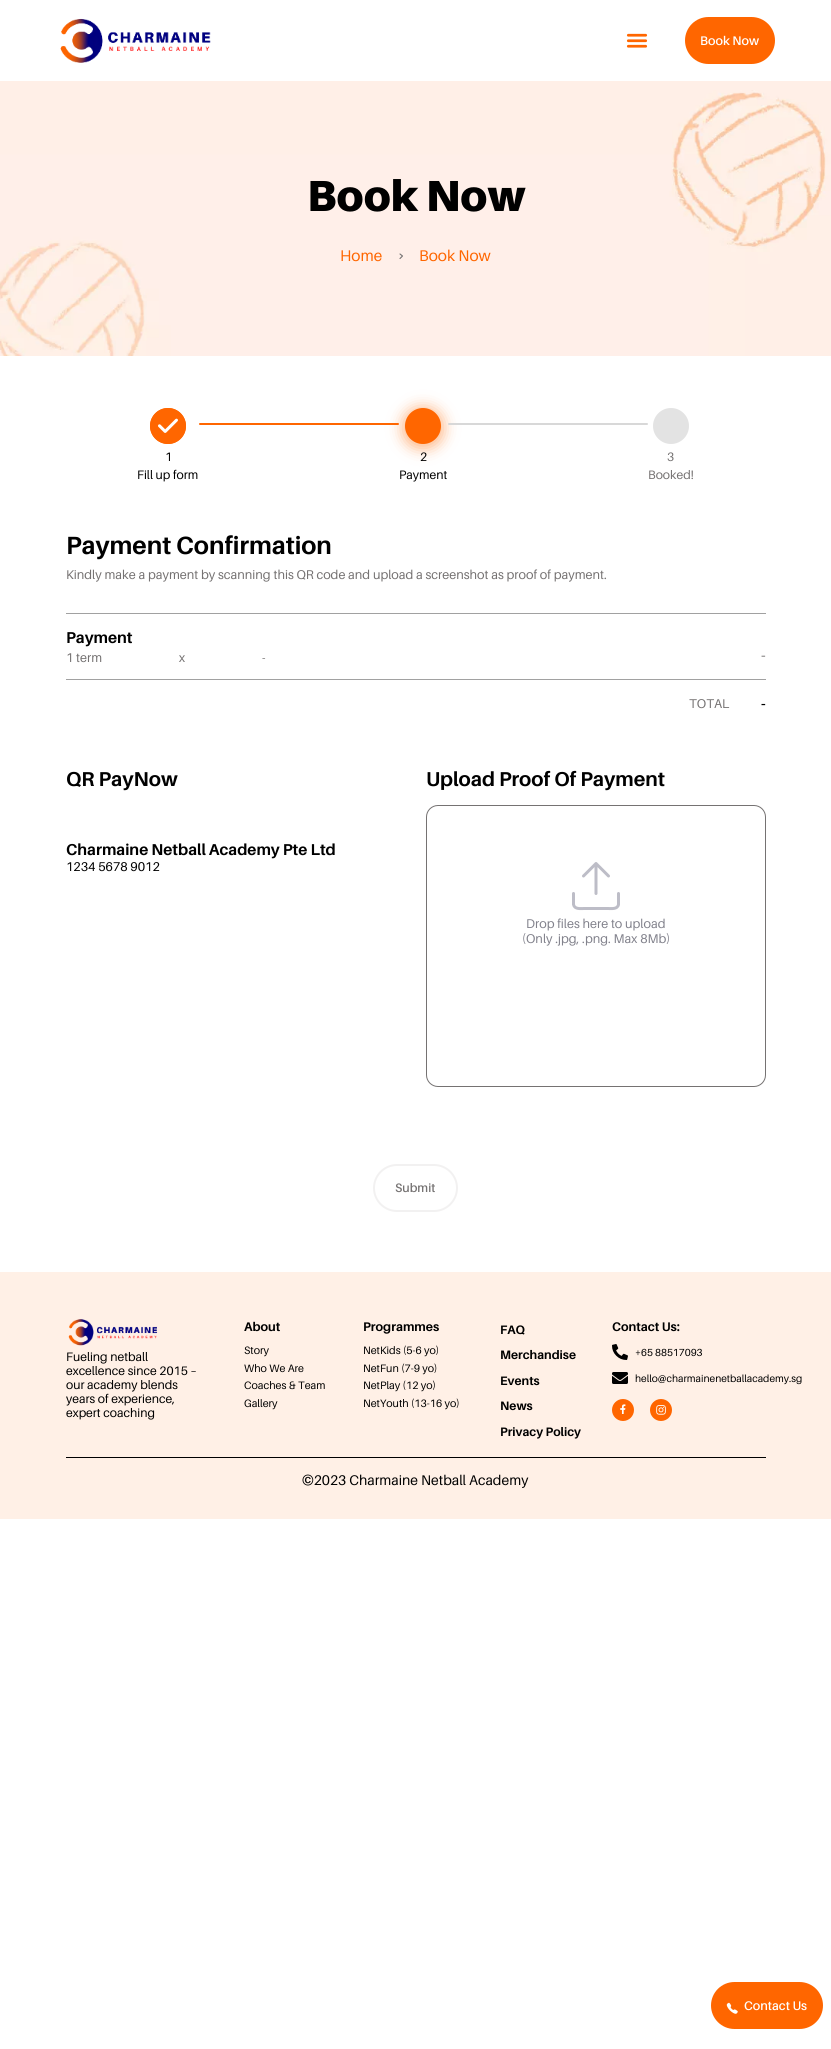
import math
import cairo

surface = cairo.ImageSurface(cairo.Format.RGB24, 831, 2049)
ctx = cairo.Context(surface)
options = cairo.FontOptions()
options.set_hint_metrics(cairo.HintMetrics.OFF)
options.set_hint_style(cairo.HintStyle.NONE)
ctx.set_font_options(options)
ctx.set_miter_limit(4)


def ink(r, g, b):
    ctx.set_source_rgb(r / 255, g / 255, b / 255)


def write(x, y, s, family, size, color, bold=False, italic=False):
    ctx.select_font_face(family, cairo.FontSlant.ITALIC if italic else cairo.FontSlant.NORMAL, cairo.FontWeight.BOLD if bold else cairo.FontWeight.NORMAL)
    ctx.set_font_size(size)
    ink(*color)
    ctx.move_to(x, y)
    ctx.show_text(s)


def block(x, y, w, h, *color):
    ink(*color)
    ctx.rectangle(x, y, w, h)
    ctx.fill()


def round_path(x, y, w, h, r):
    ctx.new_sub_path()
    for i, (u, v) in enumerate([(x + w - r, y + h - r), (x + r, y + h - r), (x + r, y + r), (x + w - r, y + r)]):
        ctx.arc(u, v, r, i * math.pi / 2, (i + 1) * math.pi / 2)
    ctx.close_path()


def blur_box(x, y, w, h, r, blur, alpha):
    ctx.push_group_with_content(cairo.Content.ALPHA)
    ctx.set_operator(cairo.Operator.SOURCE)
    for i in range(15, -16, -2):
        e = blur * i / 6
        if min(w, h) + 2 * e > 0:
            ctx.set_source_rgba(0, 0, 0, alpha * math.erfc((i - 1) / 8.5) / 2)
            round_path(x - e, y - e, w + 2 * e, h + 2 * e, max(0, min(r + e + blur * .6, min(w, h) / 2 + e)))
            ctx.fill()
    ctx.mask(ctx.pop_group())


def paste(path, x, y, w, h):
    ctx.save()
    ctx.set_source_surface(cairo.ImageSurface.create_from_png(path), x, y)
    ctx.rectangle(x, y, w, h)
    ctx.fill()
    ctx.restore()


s1 = dict(family="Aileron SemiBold", size=12.5, color=(255, 255, 255))
s2 = dict(family="Aileron Black", size=43.5, color=(0, 0, 0))
s3 = dict(family="Aileron", size=15.5, color=(255, 102, 0))
s4 = dict(family="Aileron", size=12.25, color=(0, 0, 0))
s5 = dict(family="Aileron", size=12.25, color=(117, 114, 114))
s6 = dict(family="Aileron", size=24.9, color=(0, 0, 0), bold=True)
s7 = dict(family="Aileron", size=12.7, color=(117, 114, 114))
s8 = dict(family="Aileron", size=15.75, color=(0, 0, 0), bold=True)
s9 = dict(family="Aileron", size=17, color=(117, 114, 114))
s10 = dict(family="Aileron", size=20.1, color=(0, 0, 0), bold=True)
s11 = dict(family="Aileron", size=12.7, color=(0, 0, 0))
s12 = dict(family="Aileron", size=12.7, color=(130, 130, 140))
s13 = dict(family="Aileron SemiBold", size=12.25, color=(117, 114, 114))
s14 = dict(family="Aileron", size=12.5, color=(0, 0, 0), bold=True)
s15 = dict(family="Aileron", size=10.75, color=(0, 0, 0))
s16 = dict(family="Aileron", size=12.25, color=(0, 0, 0), bold=True)
s17 = dict(family="Aileron", size=10.25, color=(0, 0, 0))
s18 = dict(family="Aileron", size=14, color=(0, 0, 0))

ink(255, 255, 255)
ctx.paint()
paste("pic1.png", 60, 18, 151, 45)
paste("pic2.png", 626, 33, 22, 15)
ink(255, 102, 0)
round_path(685, 17, 90, 47, 23.5)
ctx.fill()
write(700, 45, "Book Now", **s1)
paste("pic3.png", 0, 81, 831, 275)
write(307, 211, "Book Now", **s2)
write(340, 261, "Home", **s3)
ctx.new_path()
ctx.move_to(400, 258.5)
ctx.line_to(402.5, 256)
ctx.line_to(400, 254)
ink(117, 114, 114)
ctx.set_line_width(1.1)
ctx.set_line_cap(cairo.LineCap.ROUND)
ctx.set_line_join(cairo.LineJoin.ROUND)
ctx.stroke()
write(419, 261, "Book Now", **s3)
round_path(199, 423, 200, 2, 1)
ctx.fill()
ink(255, 102, 0)
blur_box(403, 408, 40, 40, 20, 7.5, 0.5)
ink(216, 216, 216)
round_path(448, 423, 200, 2, 1)
ctx.fill()
ink(255, 102, 0)
ctx.arc(168, 426, 18, 0, 2 * math.pi)
ctx.fill()
paste("pic4.png", 158, 418, 20, 15)
ctx.arc(168, 426, 17, 0, 2 * math.pi)
ctx.set_line_width(2)
ctx.set_line_cap(cairo.LineCap.BUTT)
ctx.set_line_join(cairo.LineJoin.MITER)
ctx.stroke()
write(165, 461, "1", **s4)
write(137, 479, "Fill up form", **s4)
ink(255, 102, 0)
ctx.new_path()
ctx.arc(423, 426, 17, 0, 2 * math.pi)
ctx.fill_preserve()
ctx.stroke()
write(420, 461, "2", **s4)
write(399, 479, "Payment", **s4)
ink(227, 227, 227)
ctx.new_path()
ctx.arc(671, 426, 17, 0, 2 * math.pi)
ctx.fill_preserve()
ctx.stroke()
write(667, 461, "3", **s5)
write(648, 479, "Booked!", **s5)
write(66, 554, "Payment Confirmation", **s6)
write(66, 579, "Kindly make a payment by scanning this QR code and upload a screenshot as proof of payment.", **s7)
block(66, 613, 700, 1, 161, 161, 161)
block(66, 679, 700, 1, 161, 161, 161)
write(66, 643, "Payment", **s8)
write(66, 662, "1 term", **s7)
write(179, 662, "x", **s7)
write(262, 662, "-", **s7)
write(761, 661, "-", **s9)
write(689, 708, "TOTAL", **s7)
write(761, 709, "-", **s8)
write(66, 786, "QR PayNow", **s10)
write(66, 855, "Charmaine Netball Academy Pte Ltd", **s8)
write(66, 871, "1234 5678 9012", **s11)
write(426, 786, "Upload Proof Of Payment", **s10)
round_path(426.5, 805.5, 339, 281, 11.5)
ink(117, 114, 114)
ctx.set_line_width(1)
ctx.stroke()
ctx.new_path()
ctx.move_to(618.5, 893.5)
ctx.line_to(618.5, 904.5)
ctx.curve_to(617.5, 909.5, 611.5, 908.5, 607.5, 908.5)
ctx.line_to(584.5, 908.5)
ctx.curve_to(580.5, 908.5, 574.5, 909.5, 573.5, 904.5)
ctx.line_to(573.5, 893.5)
ctx.move_to(608.5, 876)
ctx.line_to(596, 863.5)
ctx.line_to(583.5, 876)
ctx.move_to(596, 863.5)
ctx.line_to(596, 893.5)
ink(189, 189, 199)
ctx.set_line_width(3)
ctx.set_line_cap(cairo.LineCap.ROUND)
ctx.set_line_join(cairo.LineJoin.ROUND)
ctx.stroke()
write(526, 928, "Drop files here to upload", **s12)
write(522, 943, "(Only .jpg, .png. Max 8Mb)", **s12)
round_path(374, 1165, 83, 46, 23)
ink(242, 241, 241)
ctx.set_line_width(2)
ctx.set_line_cap(cairo.LineCap.BUTT)
ctx.set_line_join(cairo.LineJoin.MITER)
ctx.stroke()
write(395, 1192, "Submit", **s13)
block(0, 1272, 831, 247, 255, 240, 230)
block(66, 1457, 700, 1, 0, 0, 0)
paste("pic5.png", 68, 1319, 90, 27)
write(66, 1361, "Fueling netball", **s4)
write(66, 1375, "excellence since 2015 –", **s4)
write(66, 1389, "our academy blends", **s4)
write(66, 1403, "years of experience,", **s4)
write(66, 1417, "expert coaching", **s4)
write(244, 1331, "About", **s14)
write(244, 1354, "Story", **s15)
write(244, 1372, "Who We Are", **s15)
write(244, 1389, "Coaches & Team", **s15)
write(244, 1407, "Gallery", **s15)
write(363, 1331, "Programmes", **s14)
write(363, 1354, "NetKids (5-6 yo)", **s15)
write(363, 1372, "NetFun (7-9 yo)", **s15)
write(363, 1389, "NetPlay (12 yo)", **s15)
write(363, 1407, "NetYouth (13-16 yo)", **s15)
write(500, 1334, "FAQ", **s16)
write(500, 1359, "Merchandise", **s16)
write(500, 1385, "Events", **s16)
write(500, 1410, "News", **s16)
write(500, 1436, "Privacy Policy", **s16)
write(612, 1331, "Contact Us:", **s14)
paste("pic6.png", 612, 1344, 16, 16)
write(635, 1356, "+65 88517093", **s17)
paste("pic7.png", 612, 1372, 16, 12)
write(635, 1382, "hello@charmainenetballacademy.sg", **s17)
ink(255, 102, 0)
ctx.new_path()
ctx.arc(623, 1410, 11, 0, 2 * math.pi)
ctx.fill()
paste("pic8.png", 620, 1404, 6, 10)
ctx.arc(661, 1410, 11, 0, 2 * math.pi)
ctx.fill()
paste("pic9.png", 656, 1405, 10, 10)
write(302, 1485, "©2023 Charmaine Netball Academy", **s18)
ink(255, 102, 0)
round_path(711, 1982, 112, 47, 23.5)
ctx.fill()
paste("pic10.png", 726, 2002, 12, 12)
write(744, 2010, "Contact Us", **s1)
surface.write_to_png("screenshot.png")
